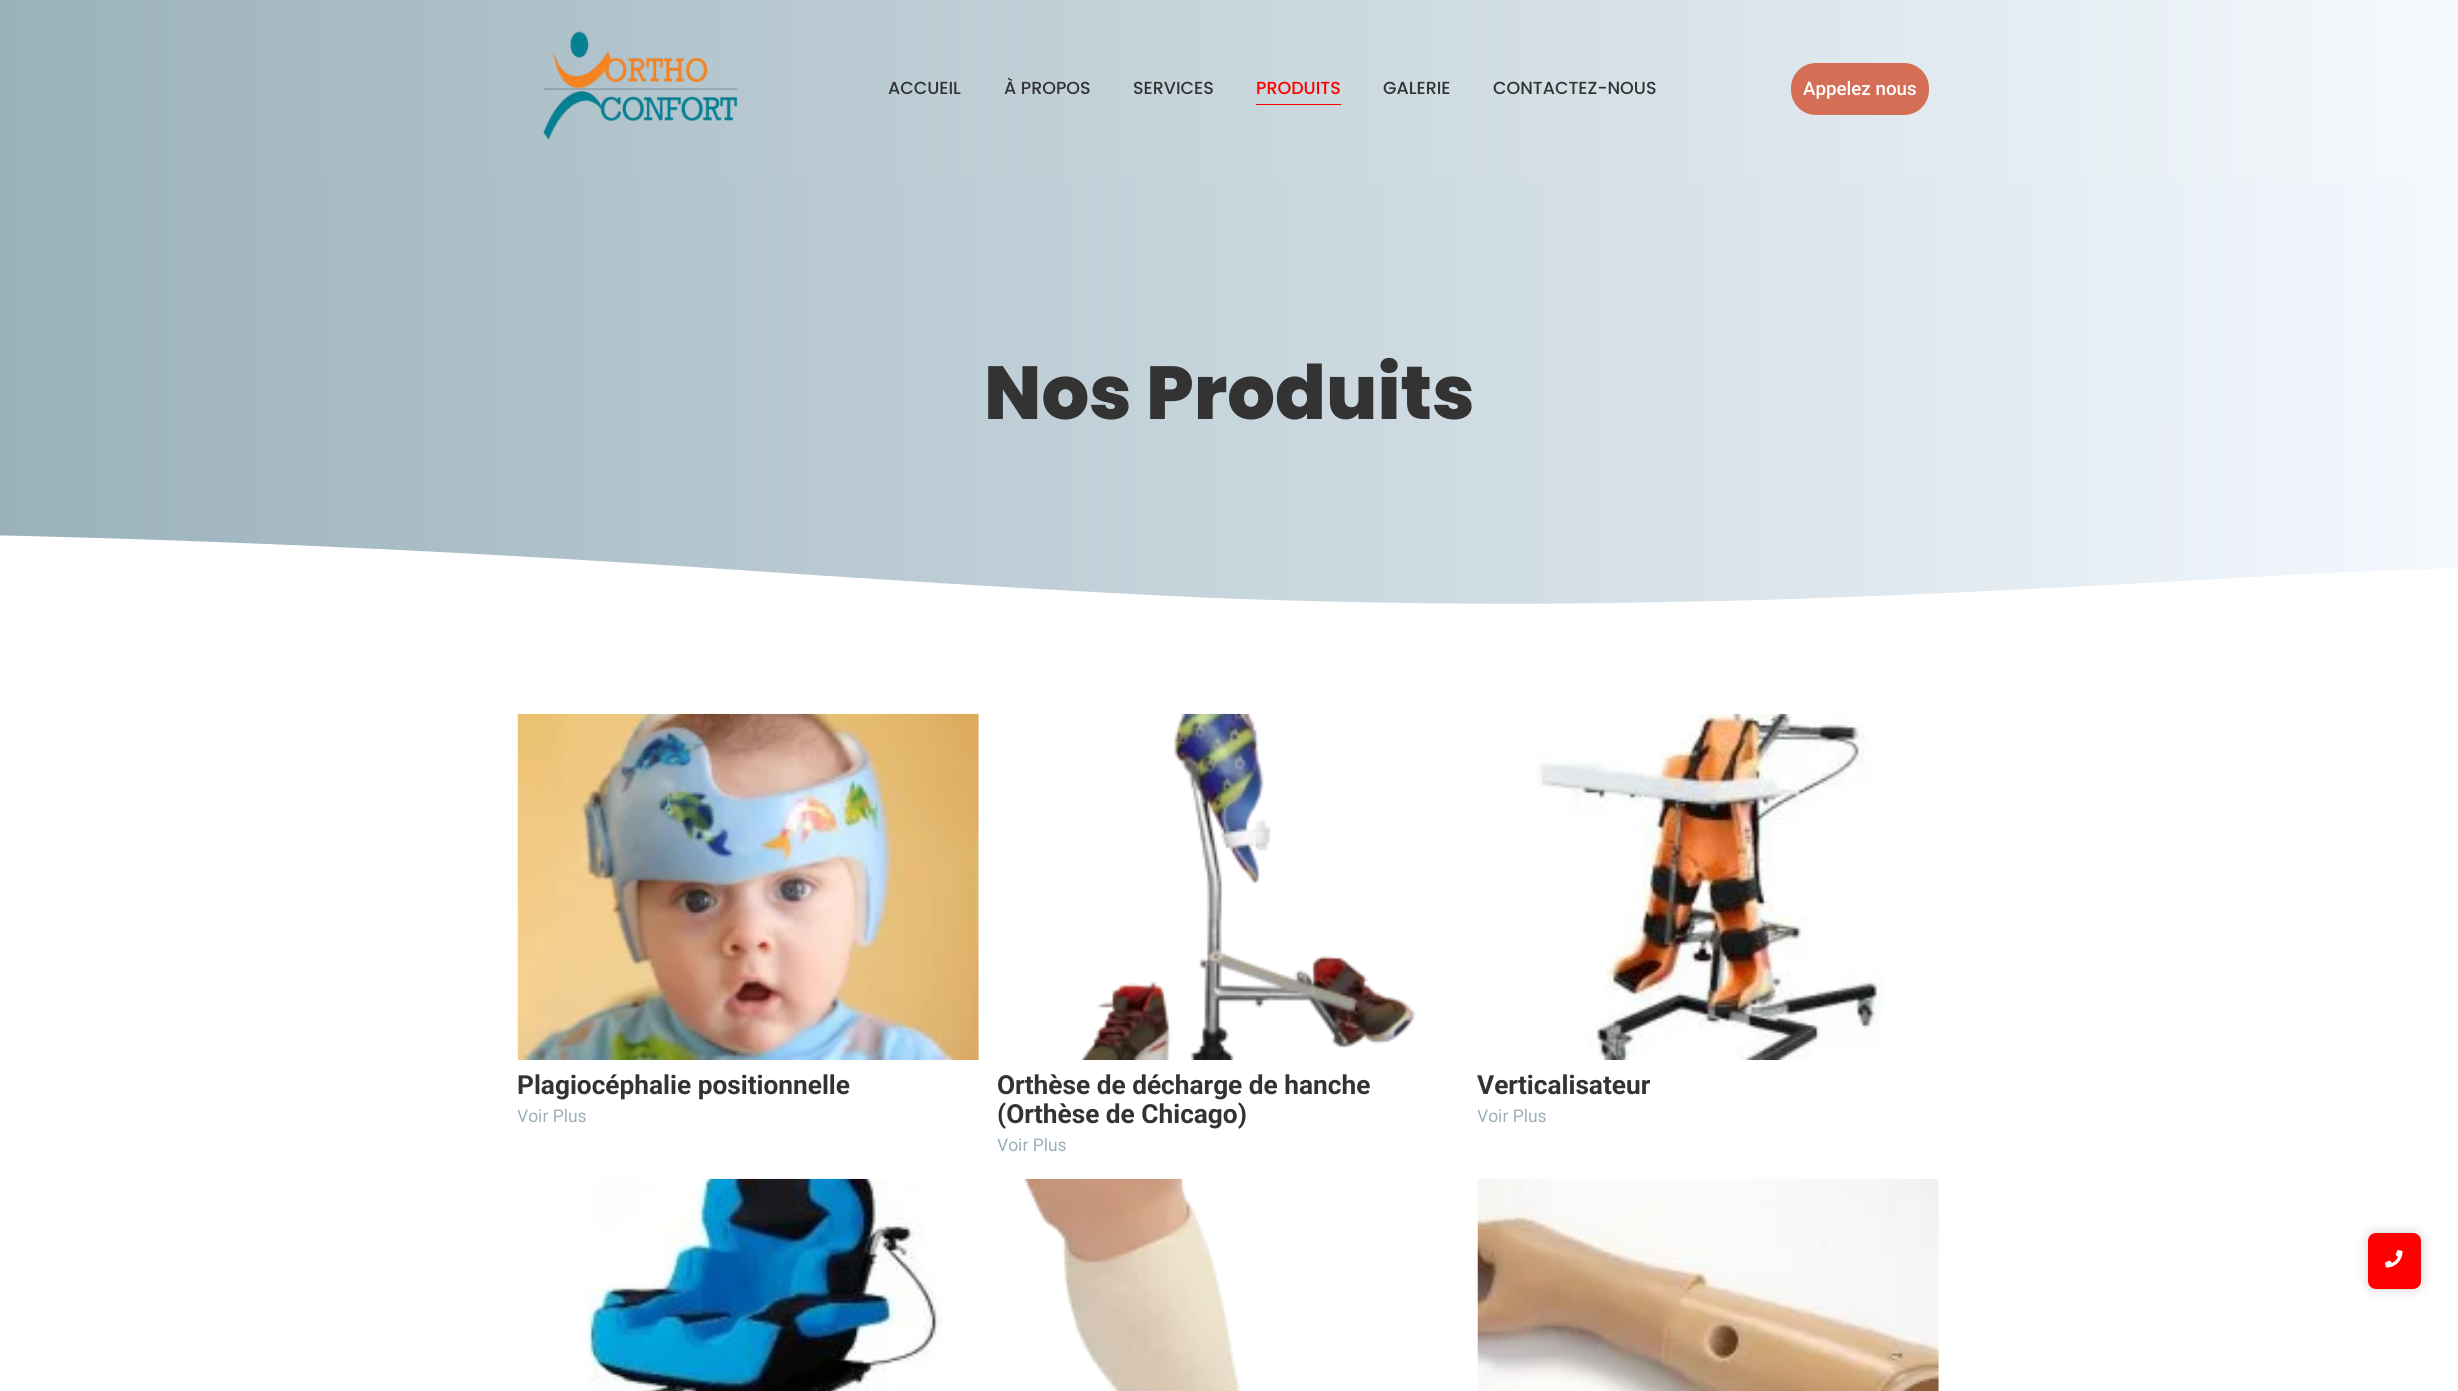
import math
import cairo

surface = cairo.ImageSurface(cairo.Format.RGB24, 2458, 1391)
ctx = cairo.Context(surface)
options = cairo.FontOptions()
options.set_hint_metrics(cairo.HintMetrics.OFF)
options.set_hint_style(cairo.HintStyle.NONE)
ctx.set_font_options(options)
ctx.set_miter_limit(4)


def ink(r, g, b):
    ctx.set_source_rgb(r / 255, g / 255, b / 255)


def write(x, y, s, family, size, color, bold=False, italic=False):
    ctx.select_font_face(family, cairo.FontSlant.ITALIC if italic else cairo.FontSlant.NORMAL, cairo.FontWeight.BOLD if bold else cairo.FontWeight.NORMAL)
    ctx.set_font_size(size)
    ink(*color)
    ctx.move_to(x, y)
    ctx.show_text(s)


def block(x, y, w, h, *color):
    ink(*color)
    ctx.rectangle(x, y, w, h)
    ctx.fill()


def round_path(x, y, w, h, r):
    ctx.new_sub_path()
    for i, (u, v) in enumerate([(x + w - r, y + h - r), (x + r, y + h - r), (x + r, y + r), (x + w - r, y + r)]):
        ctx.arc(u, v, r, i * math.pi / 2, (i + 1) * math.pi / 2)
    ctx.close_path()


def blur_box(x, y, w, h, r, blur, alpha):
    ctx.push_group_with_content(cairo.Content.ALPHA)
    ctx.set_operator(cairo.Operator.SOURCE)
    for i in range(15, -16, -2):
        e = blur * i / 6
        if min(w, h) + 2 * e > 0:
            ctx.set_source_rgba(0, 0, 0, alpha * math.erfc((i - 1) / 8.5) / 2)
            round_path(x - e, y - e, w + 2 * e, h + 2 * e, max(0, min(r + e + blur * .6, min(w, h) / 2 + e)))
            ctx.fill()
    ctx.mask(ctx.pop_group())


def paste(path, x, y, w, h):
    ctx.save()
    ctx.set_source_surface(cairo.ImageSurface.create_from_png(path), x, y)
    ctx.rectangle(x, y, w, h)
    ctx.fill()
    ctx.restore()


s1 = dict(family="Poppins Medium", size=17.5, color=(51, 51, 51))
s2 = dict(family="Poppins Medium", size=17.5, color=(255, 0, 0))
s3 = dict(family="Roboto Medium", size=18.75, color=(255, 255, 255))
s4 = dict(family="Poppins ExtraBold", size=75, color=(51, 51, 51))
s5 = dict(family="Roboto", size=26.25, color=(51, 51, 51), bold=True)
s6 = dict(family="Roboto", size=17.5, color=(154, 177, 187))

ink(255, 255, 255)
ctx.paint()
gradient = cairo.LinearGradient(0, 89, 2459, 89)
gradient.add_color_stop_rgba(0, 0.604, 0.694, 0.733, 1)
gradient.add_color_stop_rgba(1, 0.961, 0.98, 0.996, 1)
ctx.set_source(gradient)
ctx.rectangle(0, 0, 2458, 178)
ctx.fill()
paste("pic1.png", 543, 31, 195, 109)
write(888, 94, "ACCUEIL", **s1)
write(1004, 94, "À PROPOS", **s1)
write(1133, 94, "SERVICES", **s1)
write(1256, 94, "PRODUITS", **s2)
block(1256, 104, 85, 1, 255, 0, 0)
write(1383, 94, "GALERIE", **s1)
write(1493, 94, "CONTACTEZ-NOUS", **s1)
ink(212, 110, 86)
round_path(1791, 63, 138, 52, 25)
ctx.fill()
write(1803, 95, "Appelez nous", **s3)
gradient = cairo.LinearGradient(0, 393, 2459, 392)
gradient.add_color_stop_rgba(0, 0.604, 0.694, 0.733, 1)
gradient.add_color_stop_rgba(1, 0.957, 0.976, 0.996, 1)
ctx.set_source(gradient)
ctx.rectangle(0, 178, 2458, 426)
ctx.fill()
write(984, 419, "Nos Produits", **s4)
ink(255, 255, 255)
ctx.new_path()
ctx.move_to(1607, 603)
ctx.curve_to(1498, 605, 1358, 603, 1241, 599)
ctx.curve_to(1127, 595, 898, 581, 754, 571)
ctx.curve_to(387, 546, 107, 536, -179, 532)
ctx.curve_to(-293, 530, -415, 529, -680, 534)
ctx.curve_to(-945, 538, -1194, 554, -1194, 554)
ctx.line_to(-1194, 608)
ctx.line_to(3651, 608)
ctx.line_to(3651, 584)
ctx.curve_to(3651, 584, 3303, 559, 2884, 560)
ctx.curve_to(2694, 561, 2434, 566, 2235, 578)
ctx.curve_to(2132, 584, 1982, 592, 1848, 597)
ctx.curve_to(1717, 602, 1657, 602, 1607, 603)
ctx.close_path()
ctx.fill()
paste("pic2.png", 517, 713, 462, 347)
write(517, 1094, "Plagiocéphalie positionnelle", **s5)
ctx.save()
ctx.rectangle(518, 1104, 68, 26)
ctx.clip()
write(517, 1122, "Voir Plus", **s6)
ctx.restore()
paste("pic3.png", 1082, 713, 334, 347)
write(997, 1094, "Orthèse de décharge de hanche", **s5)
write(997, 1123, "(Orthèse de Chicago)", **s5)
ctx.save()
ctx.rectangle(998, 1133, 68, 26)
ctx.clip()
write(997, 1151, "Voir Plus", **s6)
ctx.restore()
paste("pic4.png", 1535, 713, 349, 347)
write(1477, 1094, "Verticalisateur", **s5)
ctx.save()
ctx.rectangle(1478, 1104, 68, 26)
ctx.clip()
write(1477, 1122, "Voir Plus", **s6)
ctx.restore()
paste("pic5.png", 586, 1178, 356, 213)
paste("pic6.png", 1024, 1178, 217, 213)
paste("pic7.png", 1477, 1179, 462, 212)
ink(0, 0, 0)
blur_box(2368, 1233, 53, 56, 8, 6, 0.2)
ink(255, 0, 0)
round_path(2368, 1233, 53, 56, 8)
ctx.fill()
paste("pic8.png", 2385, 1250, 18, 18)
surface.write_to_png("screenshot.png")
